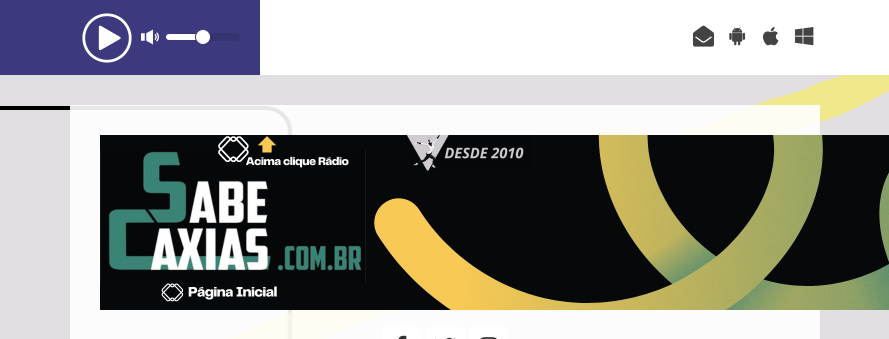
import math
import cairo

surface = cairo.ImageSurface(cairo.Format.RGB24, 889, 339)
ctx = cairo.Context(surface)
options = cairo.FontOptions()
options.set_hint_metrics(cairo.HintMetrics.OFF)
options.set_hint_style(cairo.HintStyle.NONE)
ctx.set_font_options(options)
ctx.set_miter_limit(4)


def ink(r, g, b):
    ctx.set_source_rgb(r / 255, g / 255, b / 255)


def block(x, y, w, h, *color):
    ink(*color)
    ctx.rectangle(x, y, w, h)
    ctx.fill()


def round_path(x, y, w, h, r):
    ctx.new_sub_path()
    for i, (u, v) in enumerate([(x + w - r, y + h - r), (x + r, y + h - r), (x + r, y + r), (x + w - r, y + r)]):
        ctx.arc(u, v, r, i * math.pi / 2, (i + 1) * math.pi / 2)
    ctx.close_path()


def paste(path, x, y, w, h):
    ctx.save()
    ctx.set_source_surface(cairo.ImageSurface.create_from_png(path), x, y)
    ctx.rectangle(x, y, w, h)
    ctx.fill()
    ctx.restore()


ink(255, 255, 255)
ctx.paint()
paste("pic1.png", 0, 75, 889, 264)
block(0, 0, 260, 75, 60, 57, 126)
paste("pic2.png", 82, 13, 50, 50)
ink(54, 51, 113)
round_path(165, 33, 75, 8, 4)
ctx.fill()
paste("pic3.png", 141, 29, 18, 16)
ink(255, 255, 255)
round_path(165.5, 33.5, 36, 7, 3.5)
ctx.fill_preserve()
ink(60, 57, 126)
ctx.set_line_width(1)
ctx.stroke()
ctx.set_source_rgba(0, 0, 0, 0.1)
ctx.new_path()
ctx.move_to(198, 43)
ctx.curve_to(205, 52, 218, 39, 209, 32)
ctx.curve_to(215.5, 39, 205, 49.5, 198, 43)
ctx.close_path()
ctx.fill()
ink(255, 255, 255)
ctx.arc(203, 37, 7.5, 0, 2 * math.pi)
ctx.fill_preserve()
ink(60, 57, 126)
ctx.stroke()
paste("pic4.png", 693, 25, 21, 22)
paste("pic5.png", 729, 27, 17, 19)
paste("pic6.png", 763, 27, 16, 19)
paste("pic7.png", 795, 27, 19, 19)
ctx.set_source_rgba(1, 1, 1, 0.9)
ctx.rectangle(70, 105, 750, 234)
ctx.fill()
paste("pic8.png", 100, 135, 789, 175)
ink(255, 255, 255)
round_path(381, 327, 40, 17, 5)
ctx.fill()
paste("pic9.png", 398, 335, 9, 4)
round_path(425, 327, 40, 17, 5)
ctx.fill()
paste("pic10.png", 435, 337, 21, 2)
round_path(468, 327, 40, 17, 5)
ctx.fill()
paste("pic11.png", 480, 337, 17, 2)
surface.write_to_png("screenshot.png")
